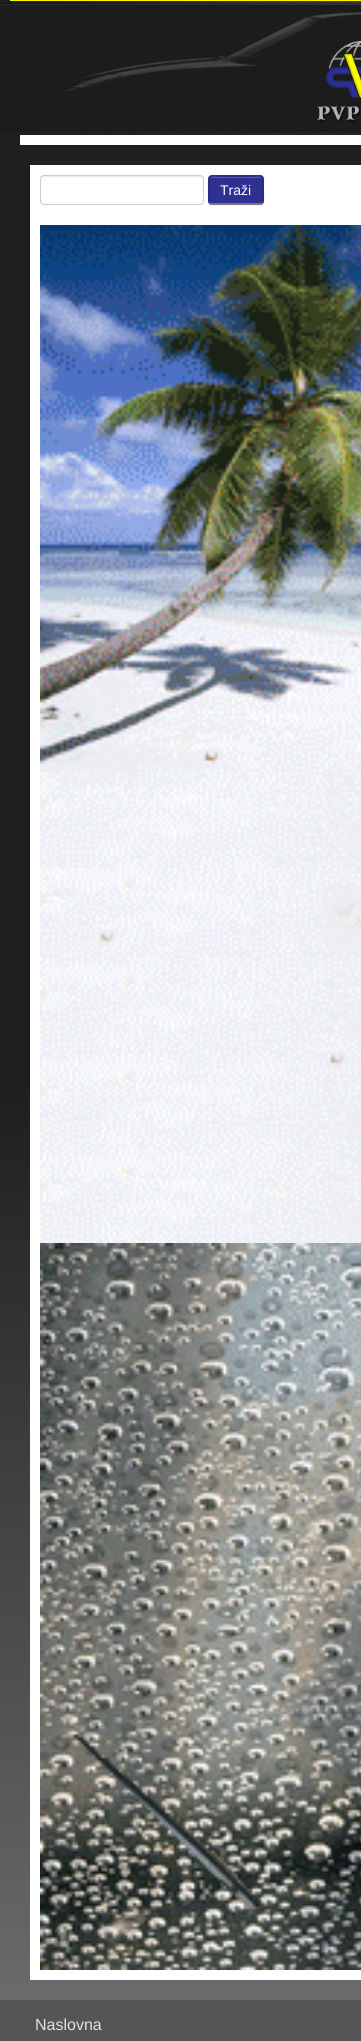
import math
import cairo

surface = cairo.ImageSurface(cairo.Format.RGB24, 361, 2041)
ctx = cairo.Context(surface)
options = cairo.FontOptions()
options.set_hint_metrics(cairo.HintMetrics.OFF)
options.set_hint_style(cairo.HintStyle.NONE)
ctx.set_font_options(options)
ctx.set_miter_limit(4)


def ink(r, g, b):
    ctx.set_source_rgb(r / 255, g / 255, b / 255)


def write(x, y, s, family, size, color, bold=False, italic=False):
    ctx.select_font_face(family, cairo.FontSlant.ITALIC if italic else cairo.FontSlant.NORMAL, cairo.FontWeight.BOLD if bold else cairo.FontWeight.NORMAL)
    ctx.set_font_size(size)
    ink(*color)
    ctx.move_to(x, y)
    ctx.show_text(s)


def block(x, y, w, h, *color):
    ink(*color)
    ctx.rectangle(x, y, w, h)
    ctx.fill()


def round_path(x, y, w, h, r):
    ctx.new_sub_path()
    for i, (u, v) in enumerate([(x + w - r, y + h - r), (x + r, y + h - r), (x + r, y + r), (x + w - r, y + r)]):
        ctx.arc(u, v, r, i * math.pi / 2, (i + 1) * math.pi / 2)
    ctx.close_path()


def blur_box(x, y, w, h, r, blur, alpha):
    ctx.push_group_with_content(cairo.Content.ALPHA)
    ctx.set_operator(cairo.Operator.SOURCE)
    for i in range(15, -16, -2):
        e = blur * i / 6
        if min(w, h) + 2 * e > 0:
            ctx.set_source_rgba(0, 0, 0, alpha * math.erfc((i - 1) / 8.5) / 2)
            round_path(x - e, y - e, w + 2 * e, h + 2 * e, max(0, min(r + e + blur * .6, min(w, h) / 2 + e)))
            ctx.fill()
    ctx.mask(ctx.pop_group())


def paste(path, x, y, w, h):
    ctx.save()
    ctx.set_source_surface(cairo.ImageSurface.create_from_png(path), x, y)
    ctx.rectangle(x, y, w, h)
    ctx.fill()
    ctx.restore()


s1 = dict(family="Liberation Sans", size=14, color=(255, 255, 255))
s2 = dict(family="Liberation Sans", size=16, color=(225, 225, 225))

ink(255, 255, 255)
ctx.paint()
gradient = cairo.LinearGradient(180, 0, 181, 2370)
gradient.add_color_stop_rgba(0, 0.122, 0.122, 0.122, 1)
gradient.add_color_stop_rgba(0.46, 0.122, 0.122, 0.122, 1)
gradient.add_color_stop_rgba(1, 0.537, 0.537, 0.537, 1)
ctx.set_source(gradient)
ctx.rectangle(0, 0, 361, 2000)
ctx.fill()
block(10, 0, 351, 1, 255, 242, 0)
paste("pic1.png", 0, 1, 361, 134)
block(20, 135, 341, 10, 255, 255, 255)
block(30, 165, 331, 1815, 255, 255, 255)
ink(236, 236, 236)
ctx.new_path()
ctx.move_to(44, 177)
ctx.line_to(200, 177)
ctx.curve_to(202, 177, 203, 178, 203, 180)
ctx.curve_to(203, 178, 202, 176, 200, 176)
ctx.line_to(43, 176)
ctx.curve_to(41, 176, 41, 178, 41, 180)
ctx.curve_to(41, 178, 42, 177, 44, 177)
ctx.close_path()
ctx.fill()
round_path(40.5, 175.5, 163, 29, 3.5)
ink(204, 204, 204)
ctx.set_line_width(1)
ctx.stroke()
ink(0, 0, 0)
blur_box(208, 176, 56, 30, 4, 1, 0.05)
ink(46, 48, 146)
round_path(208, 175, 56, 30, 4)
ctx.fill()
ink(88, 89, 168)
ctx.new_path()
ctx.move_to(212, 178)
ctx.line_to(260, 178)
ctx.curve_to(261, 178, 262, 179, 262, 180)
ctx.curve_to(262, 175, 256, 177, 252, 177)
ctx.line_to(220, 177)
ctx.curve_to(216, 177, 210, 175, 210, 180)
ctx.curve_to(210, 179, 211, 178, 212, 178)
ctx.close_path()
ctx.fill()
ctx.new_path()
ctx.move_to(262, 203)
ctx.line_to(260.5, 204)
ctx.line_to(211.5, 204)
ctx.line_to(210, 203)
ink(119, 119, 119)
ctx.set_line_width(2)
ctx.stroke()
ctx.new_path()
ctx.move_to(210, 203)
ctx.curve_to(208, 201, 209, 192.5, 209, 190)
ctx.curve_to(209, 175.5, 206, 176, 220, 176)
ctx.line_to(252, 176)
ctx.curve_to(266, 176, 263, 175.5, 263, 190)
ctx.curve_to(263, 192.5, 264, 201, 262, 203)
ctx.set_source_rgba(0, 0, 0, 0.1)
ctx.stroke()
write(220, 195, "Traži", **s1)
paste("pic2.png", 40, 225, 321, 1018)
paste("pic3.png", 40, 1243, 321, 727)
block(0, 2000, 361, 41, 85, 85, 85)
write(35, 2030, "Naslovna", **s2)
surface.write_to_png("screenshot.png")
